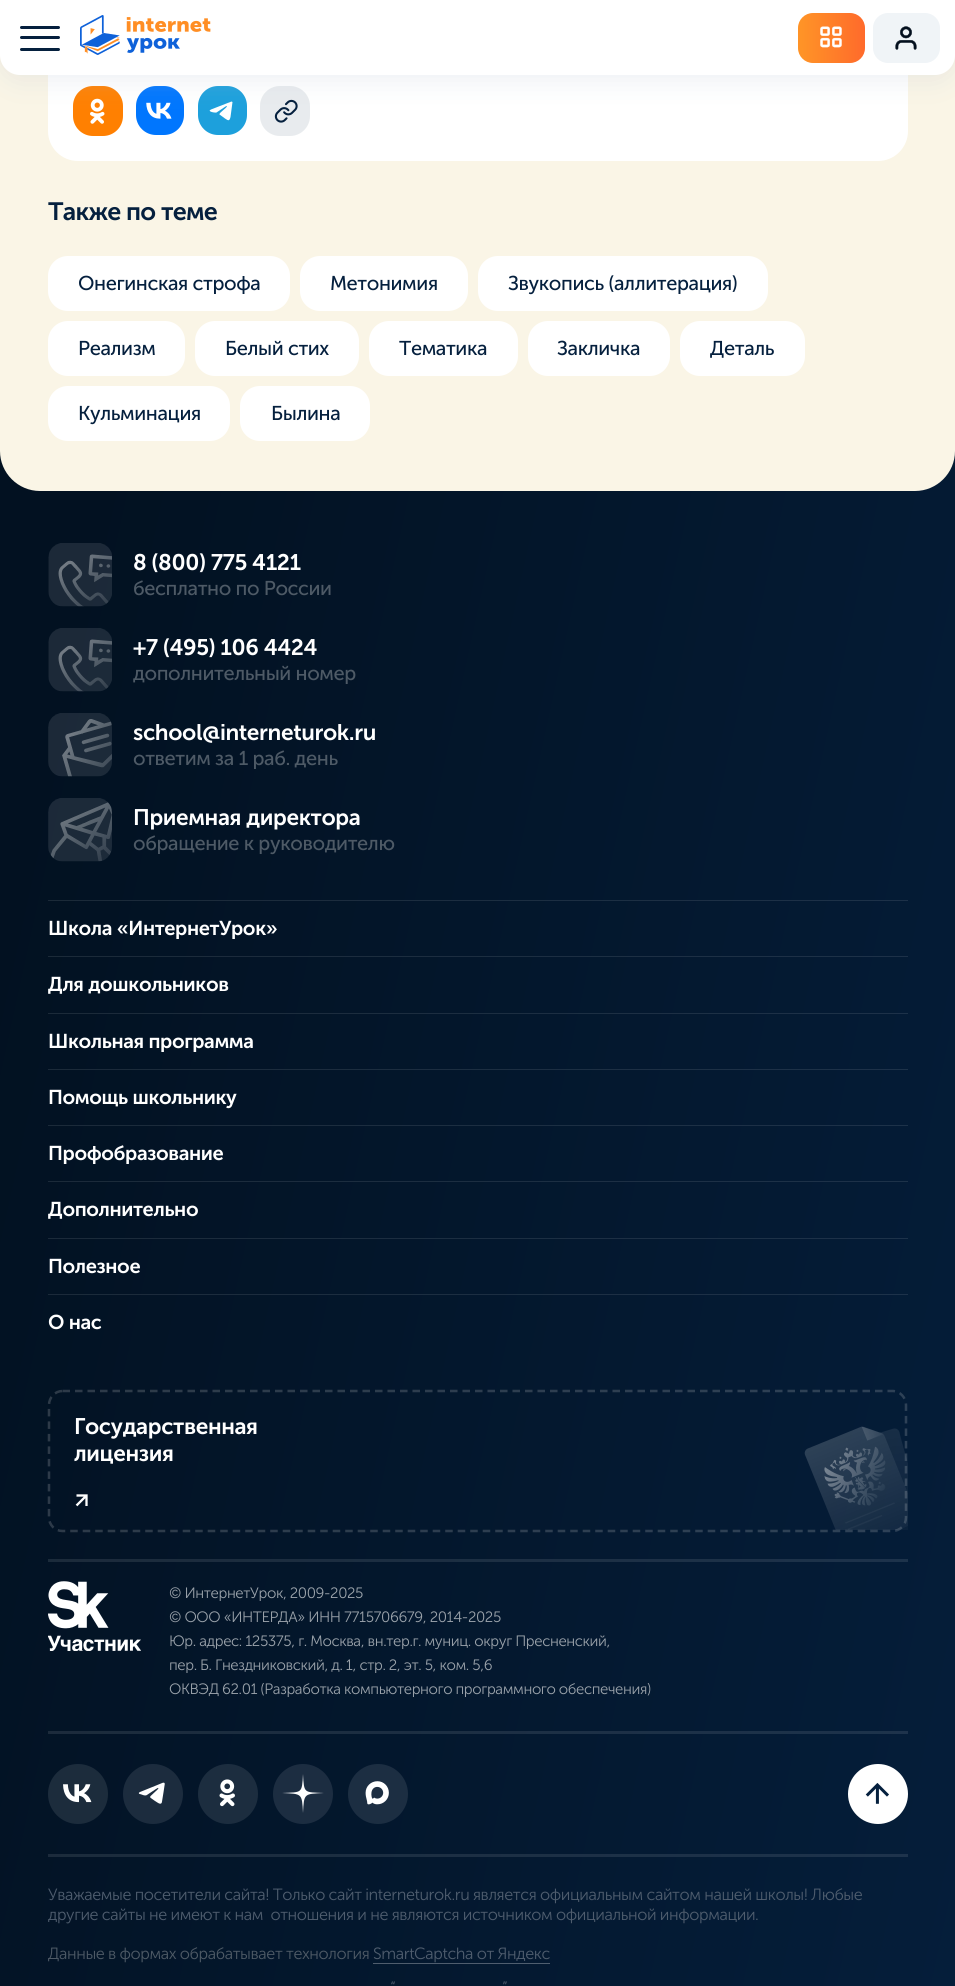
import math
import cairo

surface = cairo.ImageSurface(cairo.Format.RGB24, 955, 1986)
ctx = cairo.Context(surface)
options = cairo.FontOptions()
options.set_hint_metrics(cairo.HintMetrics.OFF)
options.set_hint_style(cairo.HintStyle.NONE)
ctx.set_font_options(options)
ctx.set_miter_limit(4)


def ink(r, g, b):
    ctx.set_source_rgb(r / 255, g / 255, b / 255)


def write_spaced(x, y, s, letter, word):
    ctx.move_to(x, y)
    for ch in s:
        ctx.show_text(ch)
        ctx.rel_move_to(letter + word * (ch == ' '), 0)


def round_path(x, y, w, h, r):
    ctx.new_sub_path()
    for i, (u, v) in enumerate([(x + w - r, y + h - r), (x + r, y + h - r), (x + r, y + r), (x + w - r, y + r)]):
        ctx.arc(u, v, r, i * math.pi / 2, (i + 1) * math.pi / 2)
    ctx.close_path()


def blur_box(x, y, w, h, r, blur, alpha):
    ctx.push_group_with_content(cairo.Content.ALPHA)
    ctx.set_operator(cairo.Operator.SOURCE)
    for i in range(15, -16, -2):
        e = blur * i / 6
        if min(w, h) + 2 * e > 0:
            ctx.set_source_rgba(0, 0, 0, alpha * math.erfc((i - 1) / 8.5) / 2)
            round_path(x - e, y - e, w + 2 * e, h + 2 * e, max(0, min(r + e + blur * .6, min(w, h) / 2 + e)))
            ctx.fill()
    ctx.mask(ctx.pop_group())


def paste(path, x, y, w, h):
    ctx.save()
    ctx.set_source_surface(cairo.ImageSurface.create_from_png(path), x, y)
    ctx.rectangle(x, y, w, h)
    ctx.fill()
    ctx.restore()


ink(255, 255, 255)
ctx.paint()
gradient = cairo.LinearGradient(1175, 1559, -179, 1264)
gradient.add_color_stop_rgba(0, 0.02, 0.122, 0.239, 1)
gradient.add_color_stop_rgba(0.93, 0.008, 0.067, 0.129, 1)
ctx.set_source(gradient)
ctx.rectangle(0, 451, 955, 1535)
ctx.fill()
ink(250, 245, 230)
ctx.new_path()
ctx.move_to(0, -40)
ctx.line_to(955, -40)
ctx.line_to(955, 451)
ctx.curve_to(955, 473, 937, 491, 915, 491)
ctx.line_to(40, 491)
ctx.curve_to(18, 491, 0, 473, 0, 451)
ctx.close_path()
ctx.fill()
ink(255, 255, 255)
round_path(48, -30, 860, 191, 30)
ctx.fill()
paste("pic4.png", 73, 86, 50, 50)
paste("pic5.png", 136, 86, 48, 49)
ink(29, 160, 220)
round_path(198, 86, 49, 49, 20)
ctx.fill()
ink(255, 255, 255)
ctx.new_path()
ctx.move_to(211, 109.5)
ctx.line_to(231.5, 101.5)
ctx.line_to(232.5, 102)
ctx.line_to(230.5, 117)
ctx.curve_to(229.5, 121, 228.5, 121, 225, 118.5)
ctx.line_to(219.5, 114.5)
ctx.curve_to(218.5, 113, 227.5, 107.5, 227, 106)
ctx.line_to(225.5, 106.5)
ctx.line_to(216.5, 112.5)
ctx.curve_to(215, 113, 206.5, 111.5, 211, 109.5)
ctx.close_path()
ctx.fill()
paste("pic6.png", 260, 86, 50, 50)
ink(186, 197, 211)
blur_box(0, 5, 955, 75, 20, 13.5, 0.27)
ink(255, 255, 255)
ctx.new_path()
ctx.move_to(0, 0)
ctx.line_to(955, 0)
ctx.line_to(955, 55)
ctx.curve_to(955, 66, 946, 75, 935, 75)
ctx.line_to(20, 75)
ctx.curve_to(9, 75, 0, 66, 0, 55)
ctx.close_path()
ctx.fill()
ink(5, 32, 62)
round_path(20, 26, 40, 3, 1.5)
ctx.fill()
round_path(20, 36, 40, 3, 1.5)
ctx.fill()
round_path(20, 48, 40, 3, 1.5)
ctx.fill()
paste("pic1.png", 80, 15, 131, 40)
gradient = cairo.LinearGradient(797, 38, 865, 37)
gradient.add_color_stop_rgba(0.07, 1, 0.576, 0.153, 1)
gradient.add_color_stop_rgba(1, 1, 0.416, 0.169, 1)
ctx.set_source(gradient)
round_path(798, 13, 67, 50, 15)
ctx.fill()
paste("pic2.png", 820, 26, 22, 22)
ink(240, 244, 247)
round_path(873, 13, 67, 50, 15)
ctx.fill()
paste("pic3.png", 895, 26, 22, 24)
ctx.select_font_face("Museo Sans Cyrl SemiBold")
ctx.set_font_size(25)
ink(5, 32, 62)
write_spaced(48, 220, "Также по теме", -0.75, 0)
ink(255, 255, 255)
round_path(48, 256, 242, 55, 20)
ctx.fill()
ctx.select_font_face("Museo Sans Cyrl")
ctx.set_font_size(20)
ink(5, 32, 62)
write_spaced(78, 290, "Онегинская строфа", -0.4, 0)
ink(255, 255, 255)
round_path(300, 256, 168, 55, 20)
ctx.fill()
ink(5, 32, 62)
write_spaced(330, 290, "Метонимия", -0.4, 0)
ink(255, 255, 255)
round_path(478, 256, 290, 55, 20)
ctx.fill()
ink(5, 32, 62)
write_spaced(508, 290, "Звукопись (аллитерация)", -0.4, 0)
ink(255, 255, 255)
round_path(48, 321, 137, 55, 20)
ctx.fill()
ink(5, 32, 62)
write_spaced(78, 355, "Реализм", -0.4, 0)
ink(255, 255, 255)
round_path(195, 321, 164, 55, 20)
ctx.fill()
ink(5, 32, 62)
write_spaced(225, 355, "Белый стих", -0.4, 0)
ink(255, 255, 255)
round_path(369, 321, 149, 55, 20)
ctx.fill()
ink(5, 32, 62)
write_spaced(399, 355, "Тематика", -0.4, 0)
ink(255, 255, 255)
round_path(528, 321, 142, 55, 20)
ctx.fill()
ink(5, 32, 62)
write_spaced(557, 355, "Закличка", -0.4, 0)
ink(255, 255, 255)
round_path(680, 321, 125, 55, 20)
ctx.fill()
ink(5, 32, 62)
write_spaced(710, 355, "Деталь", -0.4, 0)
ink(255, 255, 255)
round_path(48, 386, 182, 55, 20)
ctx.fill()
ink(5, 32, 62)
write_spaced(78, 420, "Кульминация", -0.4, 0)
ink(255, 255, 255)
round_path(240, 386, 130, 55, 20)
ctx.fill()
ink(5, 32, 62)
write_spaced(271, 420, "Былина", -0.4, 0)
gradient = cairo.LinearGradient(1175, 1559, -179, 1264)
gradient.add_color_stop_rgba(0, 0.314, 0.384, 0.467, 1)
gradient.add_color_stop_rgba(0.93, 0.306, 0.345, 0.392, 1)
ctx.set_source(gradient)
ctx.rectangle(373, 1963, 177, 1)
ctx.fill()
gradient = cairo.LinearGradient(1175, 1559, -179, 1264)
gradient.add_color_stop_rgba(0, 0.118, 0.208, 0.314, 1)
gradient.add_color_stop_rgba(0.93, 0.106, 0.161, 0.216, 1)
ctx.set_source(gradient)
ctx.rectangle(48, 1731, 860, 3)
ctx.fill()
ctx.rectangle(48, 1854, 860, 3)
ctx.fill()
ctx.rectangle(48, 1294, 860, 1)
ctx.fill()
ctx.rectangle(48, 1238, 860, 1)
ctx.fill()
ctx.rectangle(48, 1181, 860, 1)
ctx.fill()
ctx.rectangle(48, 1125, 860, 1)
ctx.fill()
ctx.rectangle(48, 1069, 860, 1)
ctx.fill()
ctx.rectangle(48, 1013, 860, 1)
ctx.fill()
ctx.rectangle(48, 956, 860, 1)
ctx.fill()
ctx.rectangle(48, 900, 860, 1)
ctx.fill()
ctx.rectangle(48, 1559, 860, 3)
ctx.fill()
paste("pic7.png", 48, 543, 64, 64)
ctx.select_font_face("Museo Sans Cyrl SemiBold")
ctx.set_font_size(22.5)
ink(255, 255, 255)
write_spaced(133, 570, "8 (800) 775 4121", -0.4, 0)
ctx.select_font_face("Museo Sans Cyrl")
ctx.set_font_size(20)
ink(78, 90, 102)
write_spaced(133, 595, "бесплатно по России", -0.4, 0)
paste("pic8.png", 48, 628, 64, 64)
ctx.select_font_face("Museo Sans Cyrl SemiBold")
ctx.set_font_size(22.5)
ink(255, 255, 255)
write_spaced(133, 655, "+7 (495) 106 4424", -0.4, 0)
ctx.select_font_face("Museo Sans Cyrl")
ctx.set_font_size(20)
ink(78, 90, 102)
write_spaced(133, 680, "дополнительный номер", -0.4, 0)
paste("pic9.png", 48, 713, 64, 64)
ctx.select_font_face("Museo Sans Cyrl SemiBold")
ctx.set_font_size(22.5)
ink(255, 255, 255)
write_spaced(133, 740, "school@interneturok.ru", -0.4, 0)
ctx.select_font_face("Museo Sans Cyrl")
ctx.set_font_size(20)
ink(78, 90, 102)
write_spaced(133, 765, "ответим за 1 раб. день", -0.4, 0)
paste("pic10.png", 48, 798, 64, 64)
ctx.select_font_face("Museo Sans Cyrl SemiBold")
ctx.set_font_size(22.5)
ink(255, 255, 255)
write_spaced(133, 825, "Приемная директора", -0.4, 0)
ctx.select_font_face("Museo Sans Cyrl")
ctx.set_font_size(20)
ink(78, 90, 102)
write_spaced(133, 850, "обращение к руководителю", -0.4, 0)
ctx.select_font_face("Museo Sans Cyrl SemiBold")
ink(255, 255, 255)
write_spaced(48, 935, "Школа «ИнтернетУрок»", -0.4, 0)
write_spaced(48, 991, "Для дошкольников", -0.4, 0)
write_spaced(48, 1048, "Школьная программа", -0.4, 0)
write_spaced(48, 1104, "Помощь школьнику", -0.4, 0)
write_spaced(48, 1160, "Профобразование", -0.4, 0)
write_spaced(48, 1216, "Дополнительно", -0.4, 0)
write_spaced(48, 1273, "Полезное", -0.4, 0)
write_spaced(48, 1329, "О нас", -0.4, 0)
ctx.new_path()
ctx.move_to(62.5, 1391)
ctx.line_to(892.5, 1391)
ctx.curve_to(900, 1391, 906, 1397.5, 906, 1405)
ctx.line_to(906, 1517.5)
ctx.curve_to(906, 1525, 900, 1531, 892.5, 1531)
ctx.line_to(62.5, 1531)
ctx.curve_to(55, 1531, 49, 1525, 49, 1517.5)
ctx.line_to(49, 1405)
ctx.curve_to(49, 1397.5, 55, 1391, 62.5, 1391)
ctx.close_path()
ctx.set_source_rgba(0.851, 0.851, 0.851, 0.2)
ctx.set_line_width(2.5)
ctx.set_dash([7.5, 5])
ctx.stroke()
ctx.set_font_size(22.5)
ink(255, 255, 255)
write_spaced(74, 1434, "Государственная", -0.4, 0)
write_spaced(74, 1461, "лицензия", -0.4, 0)
paste("pic11.png", 804, 1426, 104, 104)
ctx.new_path()
ctx.move_to(76.5, 1505.5)
ctx.line_to(86.5, 1495.5)
ctx.move_to(76.5, 1495.5)
ctx.line_to(86.5, 1495.5)
ctx.line_to(86.5, 1506)
ctx.set_line_width(2.3)
ctx.set_dash([])
ctx.stroke()
paste("pic12.png", 48, 1581, 93, 70)
ctx.select_font_face("Museo Sans Cyrl Light")
ctx.set_font_size(15)
ink(154, 162, 170)
write_spaced(169, 1598, "© ИнтернетУрок, 2009-2025", -0.4, 0)
write_spaced(169, 1622, "© ООО «ИНТЕРДА» ИНН 7715706679, 2014-2025", -0.4, 0)
write_spaced(169, 1646, "Юр. адрес: 125375, г. Москва, вн.тер.г. муниц. округ Пресненский,", -0.4, 0)
write_spaced(169, 1670, "пер. Б. Гнездниковский, д. 1, стр. 2, эт. 5, ком. 5,6", -0.4, 0)
write_spaced(169, 1694, "ОКВЭД 62.01 (Разработка компьютерного программного обеспечения)", -0.4, 0)
ink(28, 44, 60)
ctx.new_path()
ctx.arc(78, 1794, 30, 0, 2 * math.pi)
ctx.fill()
paste("pic13.png", 63, 1784, 29, 19)
ink(28, 44, 62)
ctx.arc(153, 1794, 30, 0, 2 * math.pi)
ctx.fill()
paste("pic14.png", 138, 1782, 27, 22)
ink(28, 45, 63)
ctx.arc(228, 1794, 30, 0, 2 * math.pi)
ctx.fill()
paste("pic15.png", 219, 1779, 16, 28)
ink(28, 45, 65)
ctx.arc(303, 1794, 30, 0, 2 * math.pi)
ctx.fill()
ink(255, 255, 255)
ctx.new_path()
ctx.move_to(303, 1774)
ctx.curve_to(304, 1794, 304, 1792, 324, 1793)
ctx.curve_to(304, 1794, 304, 1793, 303, 1813)
ctx.curve_to(302, 1793, 302, 1794, 282, 1793)
ctx.curve_to(302, 1792, 302, 1794, 303, 1774)
ctx.close_path()
ctx.fill()
ink(28, 46, 66)
ctx.arc(378, 1794, 30, 0, 2 * math.pi)
ctx.fill()
paste("pic16.png", 365, 1781, 24, 24)
ink(255, 255, 255)
ctx.arc(878, 1794, 30, 0, 2 * math.pi)
ctx.fill()
paste("pic17.png", 865, 1783, 24, 21)
ctx.set_font_size(16.25)
ink(79, 93, 110)
write_spaced(48, 1900, "Уважаемые посетители сайта! Только сайт interneturok.ru является официальным сайтом нашей школы! Любые", -0.4, 0)
write_spaced(48, 1920, "другие сайты не имеют к нам  отношения и не являются источником официальной информации.", -0.4, 0)
ink(78, 90, 102)
write_spaced(48, 1959, "Данные в формах обрабатывает технология", -0.4, 0)
ink(79, 93, 110)
write_spaced(373, 1959, "SmartCaptcha от Яндекс", -0.4, 0)
write_spaced(390, 1993, "“", -0.4, 0)
write_spaced(502, 1993, "”", -0.4, 0)
surface.write_to_png("screenshot.png")
